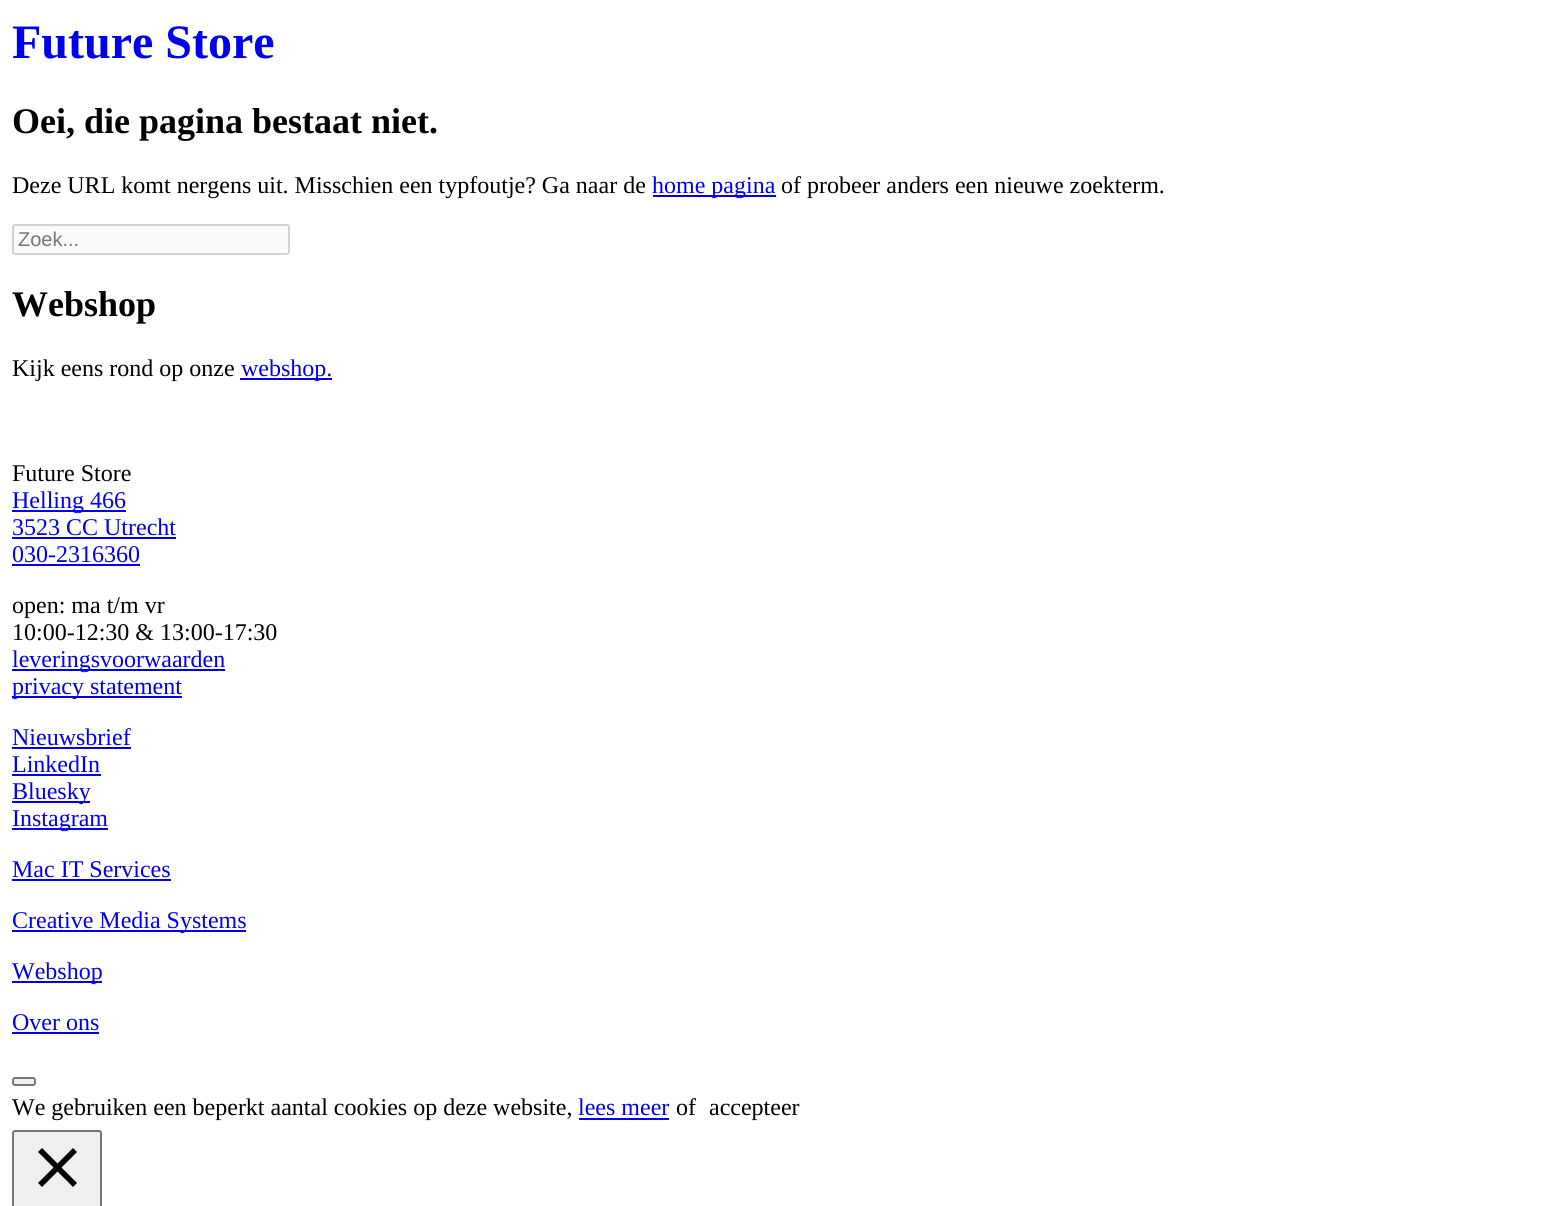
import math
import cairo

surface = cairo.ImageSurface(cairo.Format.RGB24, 1565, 1206)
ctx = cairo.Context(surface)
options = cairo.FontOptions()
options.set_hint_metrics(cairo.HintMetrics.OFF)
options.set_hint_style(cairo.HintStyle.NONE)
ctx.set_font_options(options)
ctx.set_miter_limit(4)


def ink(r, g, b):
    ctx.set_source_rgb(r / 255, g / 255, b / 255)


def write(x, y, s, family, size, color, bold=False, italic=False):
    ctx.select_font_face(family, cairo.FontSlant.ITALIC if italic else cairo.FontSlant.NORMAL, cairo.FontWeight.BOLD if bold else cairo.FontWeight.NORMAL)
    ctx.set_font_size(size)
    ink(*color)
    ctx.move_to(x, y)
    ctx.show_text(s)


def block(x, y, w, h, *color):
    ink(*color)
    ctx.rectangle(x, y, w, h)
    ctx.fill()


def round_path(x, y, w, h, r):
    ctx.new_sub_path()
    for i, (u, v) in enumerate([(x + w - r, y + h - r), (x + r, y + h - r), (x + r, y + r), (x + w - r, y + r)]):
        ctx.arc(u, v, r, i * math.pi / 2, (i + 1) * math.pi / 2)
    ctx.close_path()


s1 = dict(family="Liberation Serif", size=48, color=(0, 0, 238), bold=True)
s2 = dict(family="Liberation Serif", size=36, color=(0, 0, 0), bold=True)
s3 = dict(family="Liberation Serif", size=24, color=(0, 0, 0))
s4 = dict(family="Liberation Serif", size=24, color=(0, 0, 238))
s5 = dict(family="Liberation Sans", size=20, color=(117, 117, 117))

ink(255, 255, 255)
ctx.paint()
write(12, 58, "Future Store", **s1)
write(12, 133, "Oei, die pagina bestaat niet.", **s2)
write(12, 193, "Deze URL komt nergens uit. Misschien een typfoutje? Ga naar de", **s3)
block(653, 195, 123, 2, 0, 0, 238)
write(652, 193, "home pagina", **s4)
write(781, 193, "of probeer anders een nieuwe zoekterm.", **s3)
ink(250, 250, 250)
round_path(13, 225, 276, 29, 2)
ctx.fill_preserve()
ink(210, 210, 210)
ctx.stroke()
write(18, 246, "Zoek...", **s5)
write(12, 316, "Webshop", **s2)
write(12, 376, "Kijk eens rond op onze", **s3)
block(240, 378, 92, 2, 0, 0, 238)
write(241, 376, "webshop.", **s4)
write(12, 481, "Future Store", **s3)
block(12, 510, 114, 2, 0, 0, 238)
write(12, 508, "Helling 466", **s4)
write(12, 535, "3523 CC Utrecht", **s4)
block(12, 537, 164, 2, 0, 0, 238)
write(12, 562, "030-2316360", **s4)
block(12, 564, 128, 2, 0, 0, 238)
write(12, 613, "open: ma t/m vr", **s3)
write(12, 640, "10:00-12:30 & 13:00-17:30", **s3)
block(12, 669, 213, 2, 0, 0, 238)
write(12, 667, "leveringsvoorwaarden", **s4)
block(12, 696, 170, 2, 0, 0, 238)
write(12, 694, "privacy statement", **s4)
write(12, 745, "Nieuwsbrief", **s4)
block(12, 747, 119, 2, 0, 0, 238)
write(12, 772, "LinkedIn", **s4)
block(12, 774, 89, 2, 0, 0, 238)
block(12, 801, 78, 2, 0, 0, 238)
write(12, 799, "Bluesky", **s4)
block(12, 828, 96, 2, 0, 0, 238)
write(12, 826, "Instagram", **s4)
write(12, 877, "Mac IT Services", **s4)
block(12, 879, 159, 2, 0, 0, 238)
block(12, 930, 234, 2, 0, 0, 238)
write(12, 928, "Creative Media Systems", **s4)
block(12, 981, 90, 2, 0, 0, 238)
write(12, 979, "Webshop", **s4)
write(12, 1030, "Over ons", **s4)
block(12, 1032, 87, 2, 0, 0, 238)
ink(239, 239, 239)
round_path(13, 1078, 22, 7, 2)
ctx.fill_preserve()
ink(118, 118, 118)
ctx.stroke()
write(12, 1115, "We gebruiken een beperkt aantal cookies op deze website,", **s3)
write(578, 1115, "lees meer", **s4)
block(579, 1118, 90, 2, 0, 0, 238)
write(676, 1115, "of", **s3)
write(709, 1115, "accepteer", **s3)
ink(239, 239, 239)
round_path(13, 1131, 88, 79, 2)
ctx.fill_preserve()
ink(118, 118, 118)
ctx.stroke()
ink(0, 0, 0)
ctx.new_path()
ctx.move_to(77, 1152)
ctx.line_to(73, 1148)
ctx.line_to(57.5, 1163.5)
ctx.line_to(42, 1148)
ctx.line_to(38, 1152)
ctx.line_to(53.5, 1167.5)
ctx.line_to(38, 1183)
ctx.line_to(42, 1187)
ctx.line_to(57.5, 1171.5)
ctx.line_to(73, 1187)
ctx.line_to(77, 1183)
ctx.line_to(61.5, 1167.5)
ctx.close_path()
ctx.fill()
surface.write_to_png("screenshot.png")
